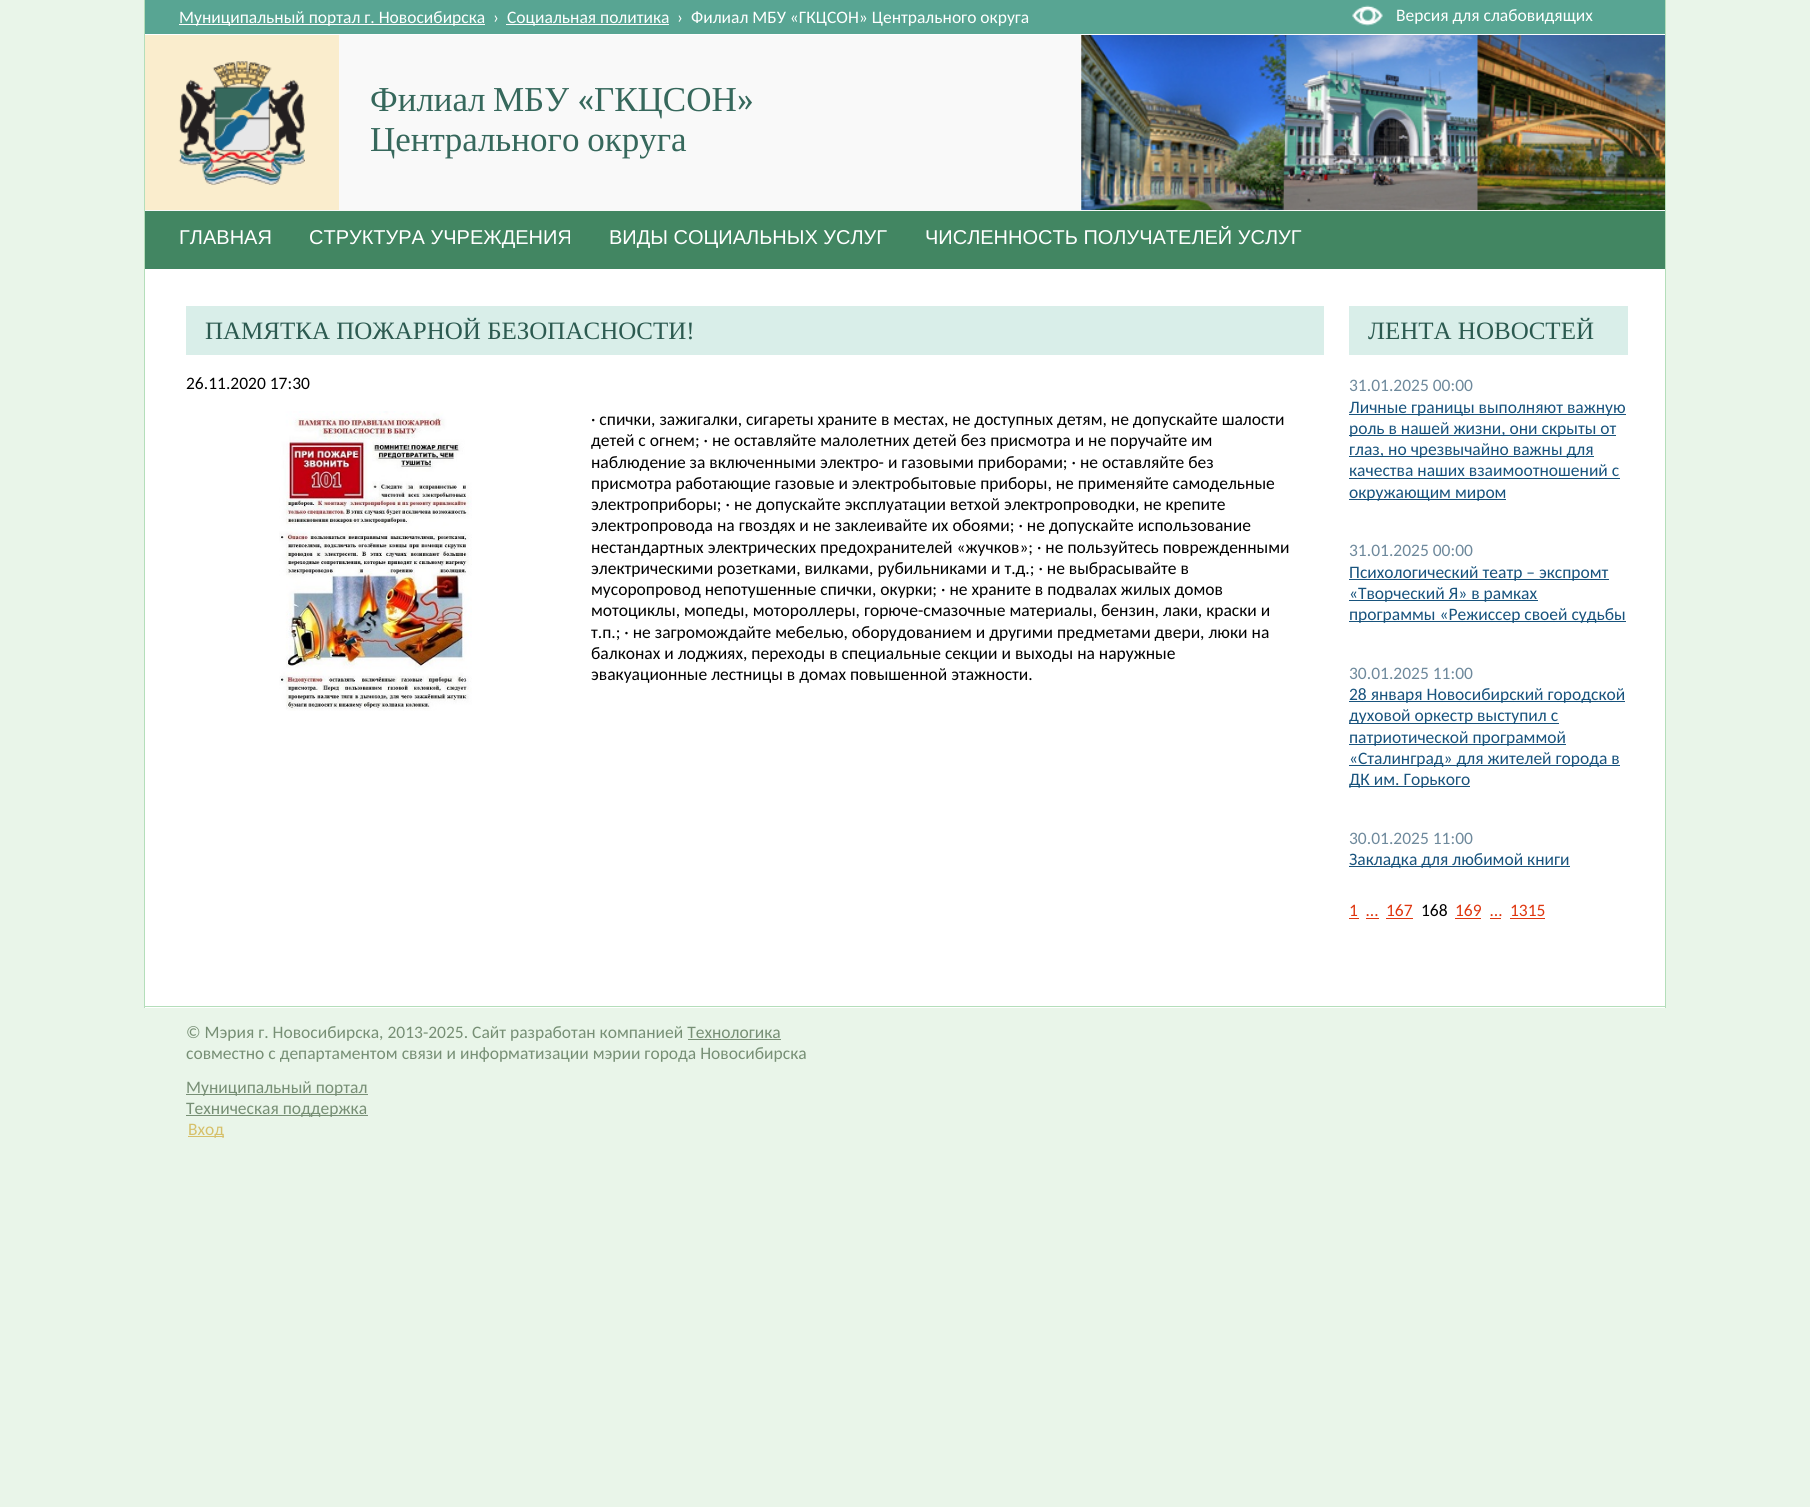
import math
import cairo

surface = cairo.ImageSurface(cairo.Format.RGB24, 1810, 1507)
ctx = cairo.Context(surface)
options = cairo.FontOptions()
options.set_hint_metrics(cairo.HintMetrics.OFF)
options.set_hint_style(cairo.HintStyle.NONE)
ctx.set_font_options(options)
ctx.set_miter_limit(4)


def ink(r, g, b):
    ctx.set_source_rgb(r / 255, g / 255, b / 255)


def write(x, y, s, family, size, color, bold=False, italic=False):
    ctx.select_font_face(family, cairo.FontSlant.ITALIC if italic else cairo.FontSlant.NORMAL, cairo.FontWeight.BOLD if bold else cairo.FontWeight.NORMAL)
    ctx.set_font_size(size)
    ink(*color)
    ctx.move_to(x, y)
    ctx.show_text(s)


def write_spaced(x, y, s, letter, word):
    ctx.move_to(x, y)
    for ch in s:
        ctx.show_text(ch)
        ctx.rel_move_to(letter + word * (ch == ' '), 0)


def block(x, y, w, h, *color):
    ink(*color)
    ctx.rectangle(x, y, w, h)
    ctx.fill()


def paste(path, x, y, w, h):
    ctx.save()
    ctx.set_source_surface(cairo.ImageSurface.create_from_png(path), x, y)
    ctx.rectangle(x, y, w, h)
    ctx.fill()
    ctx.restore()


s1 = dict(family="Carlito", size=17.5, color=(255, 255, 255))
s2 = dict(family="Liberation Serif", size=35, color=(54, 104, 92))
s3 = dict(family="Caladea", size=35, color=(54, 104, 92))
s4 = dict(family="Liberation Sans", size=20, color=(255, 255, 255))
s5 = dict(family="Liberation Serif", size=25, color=(44, 90, 80))
s6 = dict(family="Carlito", size=17.5, color=(0, 0, 0))
s7 = dict(family="Carlito", size=17.5, color=(110, 137, 156))
s8 = dict(family="Carlito", size=17.5, color=(24, 83, 125))
s9 = dict(family="Carlito", size=17.5, color=(223, 55, 16))
s10 = dict(family="Carlito", size=17.5, color=(119, 143, 117))
s11 = dict(family="Carlito", size=17.5, color=(214, 192, 106))

ink(233, 245, 233)
ctx.paint()
block(145, 269, 1520, 739, 255, 255, 255)
block(1665, 0, 1, 1008, 180, 222, 186)
block(144, 1006, 1522, 1, 180, 222, 186)
block(144, 0, 1, 1008, 180, 222, 186)
block(145, 35, 1520, 176, 249, 249, 249)
block(145, 34, 1520, 1, 255, 255, 255)
block(145, 0, 1520, 34, 88, 165, 147)
block(179, 24, 306, 1, 255, 255, 255)
write(179, 23, "Муниципальный портал г. Новосибирска", **s1)
write(493, 23, "›", **s1)
block(506, 24, 163, 1, 255, 255, 255)
write(507, 23, "Социальная политика", **s1)
write(677, 23, "›", **s1)
write(691, 23, "Филиал МБУ «ГКЦСОН» Центрального округа", **s1)
block(145, 35, 194, 175, 250, 237, 205)
paste("pic1.png", 178, 61, 127, 124)
paste("pic2.png", 1081, 35, 584, 175)
write(370, 111, "Филиал", **s2)
write(493, 111, "МБУ", **s2)
write(577, 111, "«", **s3)
write(594, 111, "ГКЦСОН", **s2)
write(737, 111, "»", **s3)
ctx.select_font_face("Liberation Serif")
write_spaced(370, 151, "Центрального округа", 0, -1)
paste("pic3.png", 1352, 5, 31, 21)
write(1396, 21, "Версия для слабовидящих", **s1)
block(145, 211, 1520, 58, 66, 134, 98)
write(179, 244, "ГЛАВНАЯ", **s4)
write(309, 244, "СТРУКТУРА УЧРЕЖДЕНИЯ", **s4)
write(609, 244, "ВИДЫ СОЦИАЛЬНЫХ УСЛУГ", **s4)
write(925, 244, "ЧИСЛЕННОСТЬ ПОЛУЧАТЕЛЕЙ УСЛУГ", **s4)
block(186, 306, 1138, 49, 217, 238, 233)
write(205, 339, "ПАМЯТКА ПОЖАРНОЙ БЕЗОПАСНОСТИ!", **s5)
write(186, 389, "26.11.2020 17:30", **s6)
paste("pic4.png", 279, 411, 193, 300)
write(591, 425, "· спички, зажигалки, сигареты храните в местах, не доступных детям, не допускайте шалости", **s6)
write(591, 446, "детей с огнем; · не оставляйте малолетних детей без присмотра и не поручайте им", **s6)
write(591, 468, "наблюдение за включенными электро- и газовыми приборами; · не оставляйте без", **s6)
write(591, 489, "присмотра работающие газовые и электробытовые приборы, не применяйте самодельные", **s6)
write(591, 510, "электроприборы; · не допускайте эксплуатации ветхой электропроводки, не крепите", **s6)
write(591, 531, "электропровода на гвоздях и не заклеивайте их обоями; · не допускайте использование", **s6)
write(591, 553, "нестандартных электрических предохранителей «жучков»; · не пользуйтесь поврежденными", **s6)
write(591, 574, "электрическими розетками, вилками, рубильниками и т.д.; · не выбрасывайте в", **s6)
write(591, 595, "мусоропровод непотушенные спички, окурки; · не храните в подвалах жилых домов", **s6)
write(591, 616, "мотоциклы, мопеды, мотороллеры, горюче-смазочные материалы, бензин, лаки, краски и", **s6)
write(591, 638, "т.п.; · не загромождайте мебелью, оборудованием и другими предметами двери, люки на", **s6)
write(591, 659, "балконах и лоджиях, переходы в специальные секции и выходы на наружные", **s6)
write(591, 680, "эвакуационные лестницы в домах повышенной этажности.", **s6)
block(1349, 306, 279, 49, 217, 238, 233)
write(1368, 339, "ЛЕНТА НОВОСТЕЙ", **s5)
write(1349, 391, "31.01.2025 00:00", **s7)
block(1349, 414, 277, 1, 24, 83, 125)
write(1349, 413, "Личные границы выполняют важную", **s8)
block(1349, 435, 267, 1, 24, 83, 125)
write(1349, 434, "роль в нашей жизни, они скрыты от", **s8)
block(1349, 456, 245, 1, 24, 83, 125)
write(1349, 455, "глаз, но чрезвычайно важны для", **s8)
write(1349, 476, "качества наших взаимоотношений с", **s8)
block(1349, 478, 271, 1, 24, 83, 125)
block(1349, 499, 157, 1, 24, 83, 125)
write(1349, 498, "окружающим миром", **s8)
write(1349, 556, "31.01.2025 00:00", **s7)
block(1349, 579, 260, 1, 24, 83, 125)
write(1349, 578, "Психологический театр – экспромт", **s8)
block(1349, 600, 189, 1, 24, 83, 125)
write(1349, 599, "«Творческий Я» в рамках", **s8)
block(1349, 621, 277, 1, 24, 83, 125)
write(1349, 620, "программы «Режиссер своей судьбы", **s8)
write(1349, 679, "30.01.2025 11:00", **s7)
block(1349, 701, 276, 1, 24, 83, 125)
write(1349, 700, "28 января Новосибирский городской", **s8)
block(1349, 723, 210, 1, 24, 83, 125)
write(1349, 721, "духовой оркестр выступил с", **s8)
block(1349, 744, 217, 1, 24, 83, 125)
write(1349, 743, "патриотической программой", **s8)
block(1349, 765, 271, 1, 24, 83, 125)
write(1349, 764, "«Сталинград» для жителей города в", **s8)
block(1349, 786, 121, 1, 24, 83, 125)
write(1349, 785, "ДК им. Горького", **s8)
write(1349, 844, "30.01.2025 11:00", **s7)
block(1349, 866, 221, 1, 24, 83, 125)
write(1349, 865, "Закладка для любимой книги", **s8)
write(1349, 916, "1", **s9)
block(1349, 918, 10, 1, 223, 55, 16)
write(1366, 916, "…", **s9)
block(1366, 918, 13, 1, 223, 55, 16)
write(1386, 916, "167", **s9)
block(1386, 918, 27, 1, 223, 55, 16)
write(1421, 916, "168", **s6)
write(1455, 916, "169", **s9)
block(1455, 918, 26, 1, 223, 55, 16)
write(1490, 916, "…", **s9)
block(1490, 918, 11, 1, 223, 55, 16)
write(1510, 916, "1315", **s9)
block(1510, 918, 35, 1, 223, 55, 16)
write(186, 1038, "© Мэрия г. Новосибирска, 2013-2025. Сайт разработан компанией Технологика", **s10)
block(688, 1039, 93, 1, 119, 143, 117)
write(186, 1059, "совместно с департаментом связи и информатизации мэрии города Новосибирска", **s10)
block(186, 1094, 182, 1, 119, 143, 117)
write(186, 1093, "Муниципальный портал", **s10)
block(186, 1115, 182, 1, 119, 143, 117)
write(186, 1114, "Техническая поддержка", **s10)
block(188, 1136, 36, 1, 214, 192, 106)
write(188, 1135, "Вход", **s11)
surface.write_to_png("screenshot.png")
